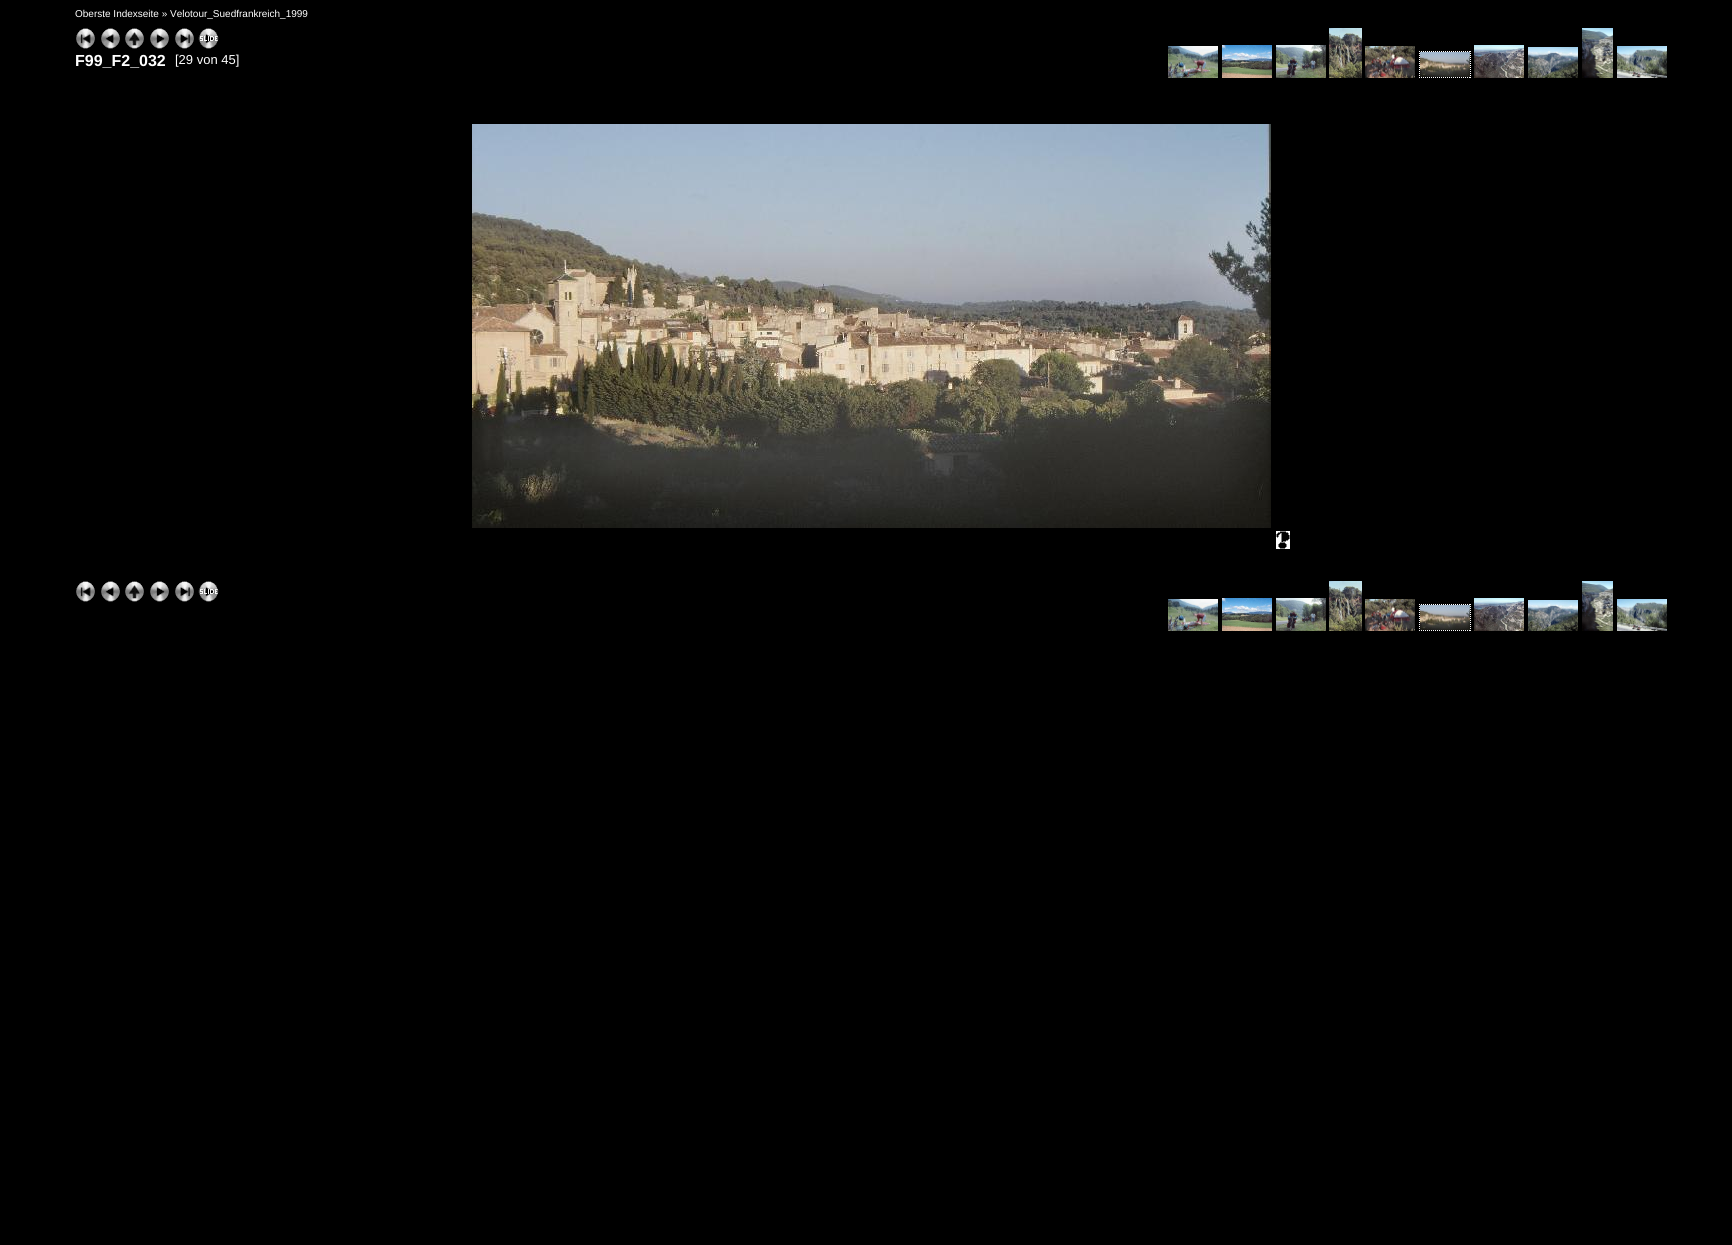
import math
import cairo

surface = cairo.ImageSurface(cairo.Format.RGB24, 1732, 1245)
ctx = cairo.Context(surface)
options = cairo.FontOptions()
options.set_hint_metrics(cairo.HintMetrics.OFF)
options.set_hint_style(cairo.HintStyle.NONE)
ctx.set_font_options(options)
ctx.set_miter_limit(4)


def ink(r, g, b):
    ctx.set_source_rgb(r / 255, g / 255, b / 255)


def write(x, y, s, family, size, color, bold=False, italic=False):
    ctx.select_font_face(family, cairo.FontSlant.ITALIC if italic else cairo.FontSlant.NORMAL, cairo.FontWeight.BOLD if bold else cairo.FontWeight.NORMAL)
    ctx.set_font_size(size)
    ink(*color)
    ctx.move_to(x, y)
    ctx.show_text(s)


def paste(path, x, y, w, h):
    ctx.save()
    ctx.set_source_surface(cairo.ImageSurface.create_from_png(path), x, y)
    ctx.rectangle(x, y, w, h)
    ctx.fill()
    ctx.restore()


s1 = dict(family="Liberation Sans", size=10, color=(255, 255, 255))
s2 = dict(family="Liberation Sans", size=16, color=(255, 255, 255), bold=True)
s3 = dict(family="Liberation Sans", size=13, color=(255, 255, 255))

ink(0, 0, 0)
ctx.paint()
write(75, 17, "Oberste Indexseite » Velotour_Suedfrankreich_1999", **s1)
paste("pic1.png", 76, 28, 19, 21)
paste("pic2.png", 101, 28, 19, 21)
paste("pic3.png", 125, 28, 19, 21)
paste("pic4.png", 150, 28, 19, 21)
paste("pic5.png", 175, 28, 19, 21)
paste("pic6.png", 198, 28, 21, 21)
paste("pic7.png", 1168, 46, 50, 32)
paste("pic8.png", 1222, 45, 50, 33)
paste("pic9.png", 1276, 45, 50, 33)
paste("pic10.png", 1329, 28, 33, 50)
paste("pic11.png", 1365, 46, 50, 32)
ctx.new_path()
ctx.move_to(1419, 51.5)
ctx.line_to(1471, 51.5)
ctx.move_to(1470.5, 51)
ctx.line_to(1470.5, 78)
ctx.move_to(1419, 77.5)
ctx.line_to(1471, 77.5)
ctx.move_to(1419.5, 51)
ctx.line_to(1419.5, 78)
ctx.set_line_width(1)
ctx.set_dash([1, 1])
ctx.stroke()
paste("pic12.png", 1474, 45, 50, 33)
paste("pic13.png", 1528, 47, 50, 31)
paste("pic14.png", 1582, 28, 31, 50)
paste("pic15.png", 1617, 46, 50, 32)
paste("pic16.png", 1420, 52, 50, 25)
write(75, 66, "F99_F2_032", **s2)
write(175, 64, "[29 von 45]", **s3)
paste("pic17.png", 472, 124, 799, 404)
paste("pic18.png", 1276, 531, 14, 18)
paste("pic1.png", 76, 581, 19, 21)
paste("pic2.png", 101, 581, 19, 21)
paste("pic3.png", 125, 581, 19, 21)
paste("pic4.png", 150, 581, 19, 21)
paste("pic5.png", 175, 581, 19, 21)
paste("pic6.png", 198, 581, 21, 21)
paste("pic7.png", 1168, 599, 50, 32)
paste("pic8.png", 1222, 598, 50, 33)
paste("pic9.png", 1276, 598, 50, 33)
paste("pic10.png", 1329, 581, 33, 50)
paste("pic11.png", 1365, 599, 50, 32)
ctx.new_path()
ctx.move_to(1419, 604.5)
ctx.line_to(1471, 604.5)
ctx.move_to(1470.5, 604)
ctx.line_to(1470.5, 631)
ctx.move_to(1419, 630.5)
ctx.line_to(1471, 630.5)
ctx.move_to(1419.5, 604)
ctx.line_to(1419.5, 631)
ctx.stroke()
paste("pic12.png", 1474, 598, 50, 33)
paste("pic19.png", 1528, 600, 50, 31)
paste("pic14.png", 1582, 581, 31, 50)
paste("pic15.png", 1617, 599, 50, 32)
paste("pic20.png", 1420, 605, 50, 25)
surface.write_to_png("screenshot.png")
